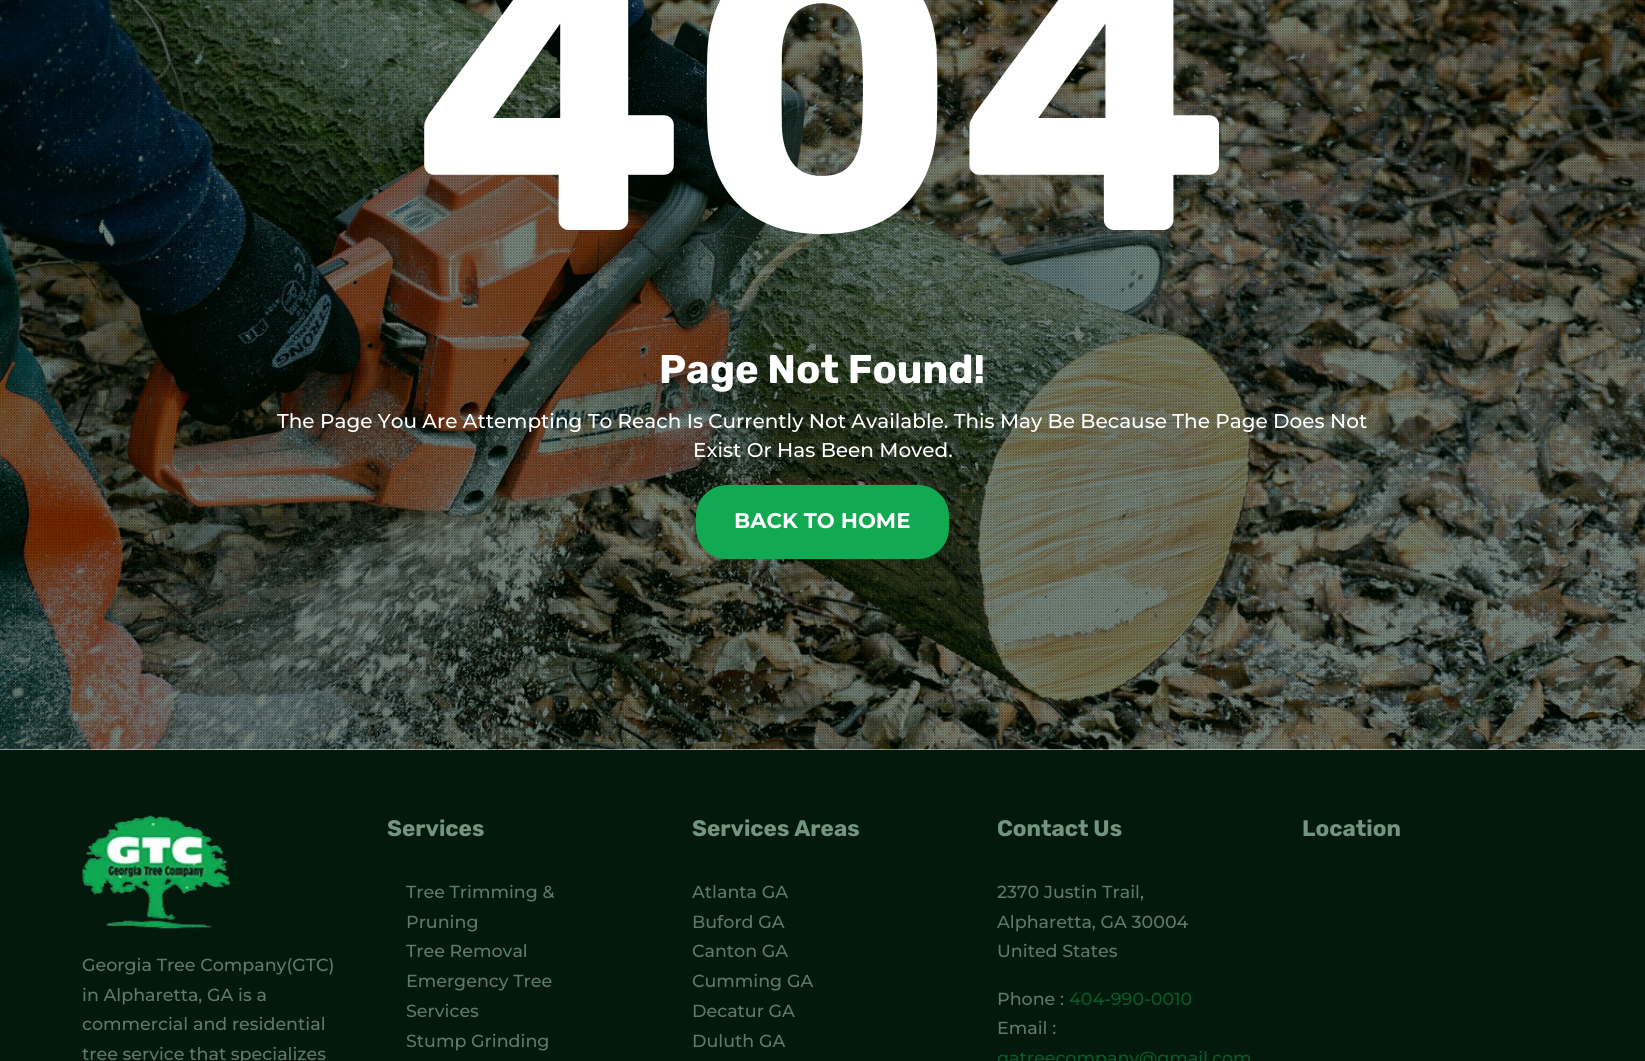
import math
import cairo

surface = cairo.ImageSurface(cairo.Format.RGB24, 1645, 1061)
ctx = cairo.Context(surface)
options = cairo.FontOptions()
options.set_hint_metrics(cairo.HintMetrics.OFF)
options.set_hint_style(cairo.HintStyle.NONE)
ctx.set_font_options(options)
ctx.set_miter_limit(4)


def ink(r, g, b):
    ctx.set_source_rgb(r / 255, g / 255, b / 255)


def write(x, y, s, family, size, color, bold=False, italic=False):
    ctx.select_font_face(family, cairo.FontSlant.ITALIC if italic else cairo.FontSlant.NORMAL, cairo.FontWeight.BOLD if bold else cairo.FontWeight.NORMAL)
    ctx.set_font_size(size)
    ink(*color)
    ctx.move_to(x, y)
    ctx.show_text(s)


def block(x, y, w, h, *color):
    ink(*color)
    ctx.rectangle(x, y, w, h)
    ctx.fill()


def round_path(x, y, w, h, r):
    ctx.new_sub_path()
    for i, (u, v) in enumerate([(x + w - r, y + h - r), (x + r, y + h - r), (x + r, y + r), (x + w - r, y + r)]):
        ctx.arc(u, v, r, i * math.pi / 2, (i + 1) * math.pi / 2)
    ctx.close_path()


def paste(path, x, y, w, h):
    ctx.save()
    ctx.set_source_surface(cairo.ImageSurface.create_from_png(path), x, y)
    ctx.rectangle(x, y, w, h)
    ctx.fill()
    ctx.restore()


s1 = dict(family="Rubik Light", size=400, color=(255, 255, 255))
s2 = dict(family="Rubik Light", size=40, color=(255, 255, 255))
s3 = dict(family="Montserrat Thin", size=20, color=(255, 255, 255))
s4 = dict(family="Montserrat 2 Thin", size=21.25, color=(255, 255, 255))
s5 = dict(family="Montserrat Thin", size=17.5, color=(93, 121, 104))
s6 = dict(family="Rubik Light", size=22.5, color=(114, 149, 128))
s7 = dict(family="Montserrat Thin", size=17.5, color=(7, 91, 40))

ink(255, 255, 255)
ctx.paint()
paste("pic1.png", 0, 0, 1645, 750)
write(413, 230, "404", **s1)
write(659, 383, "Page Not Found!", **s2)
write(277, 428, "The Page You Are Attempting To Reach Is Currently Not Available. This May Be Because The Page Does Not", **s3)
write(693, 457, "Exist Or Has Been Moved.", **s3)
ink(17, 169, 82)
round_path(696, 485, 253, 74, 31)
ctx.fill()
write(734, 528, "BACK TO HOME", **s4)
block(0, 750, 1645, 311, 2, 25, 11)
paste("pic2.png", 82, 815, 148, 114)
write(82, 971, "Georgia Tree Company(GTC)", **s5)
write(82, 1001, "in Alpharetta, GA is a", **s5)
write(82, 1030, "commercial and residential", **s5)
write(82, 1060, "tree service that specializes", **s5)
write(387, 836, "Services", **s6)
write(406, 898, "Tree Trimming &", **s5)
write(406, 928, "Pruning", **s5)
write(406, 957, "Tree Removal", **s5)
write(406, 987, "Emergency Tree", **s5)
write(406, 1017, "Services", **s5)
write(406, 1047, "Stump Grinding", **s5)
write(692, 836, "Services Areas", **s6)
write(692, 898, "Atlanta GA", **s5)
write(692, 928, "Buford GA", **s5)
write(692, 957, "Canton GA", **s5)
write(692, 987, "Cumming GA", **s5)
write(692, 1017, "Decatur GA", **s5)
write(692, 1047, "Duluth GA", **s5)
write(997, 836, "Contact Us", **s6)
write(997, 898, "2370 Justin Trail,", **s5)
write(997, 928, "Alpharetta, GA 30004", **s5)
write(997, 957, "United States", **s5)
write(997, 1005, "Phone :", **s5)
write(1069, 1005, "404-990-0010", **s7)
write(997, 1034, "Email :", **s5)
write(997, 1064, "gatreecompany@gmail.com", **s7)
write(1302, 836, "Location", **s6)
surface.write_to_png("screenshot.png")
